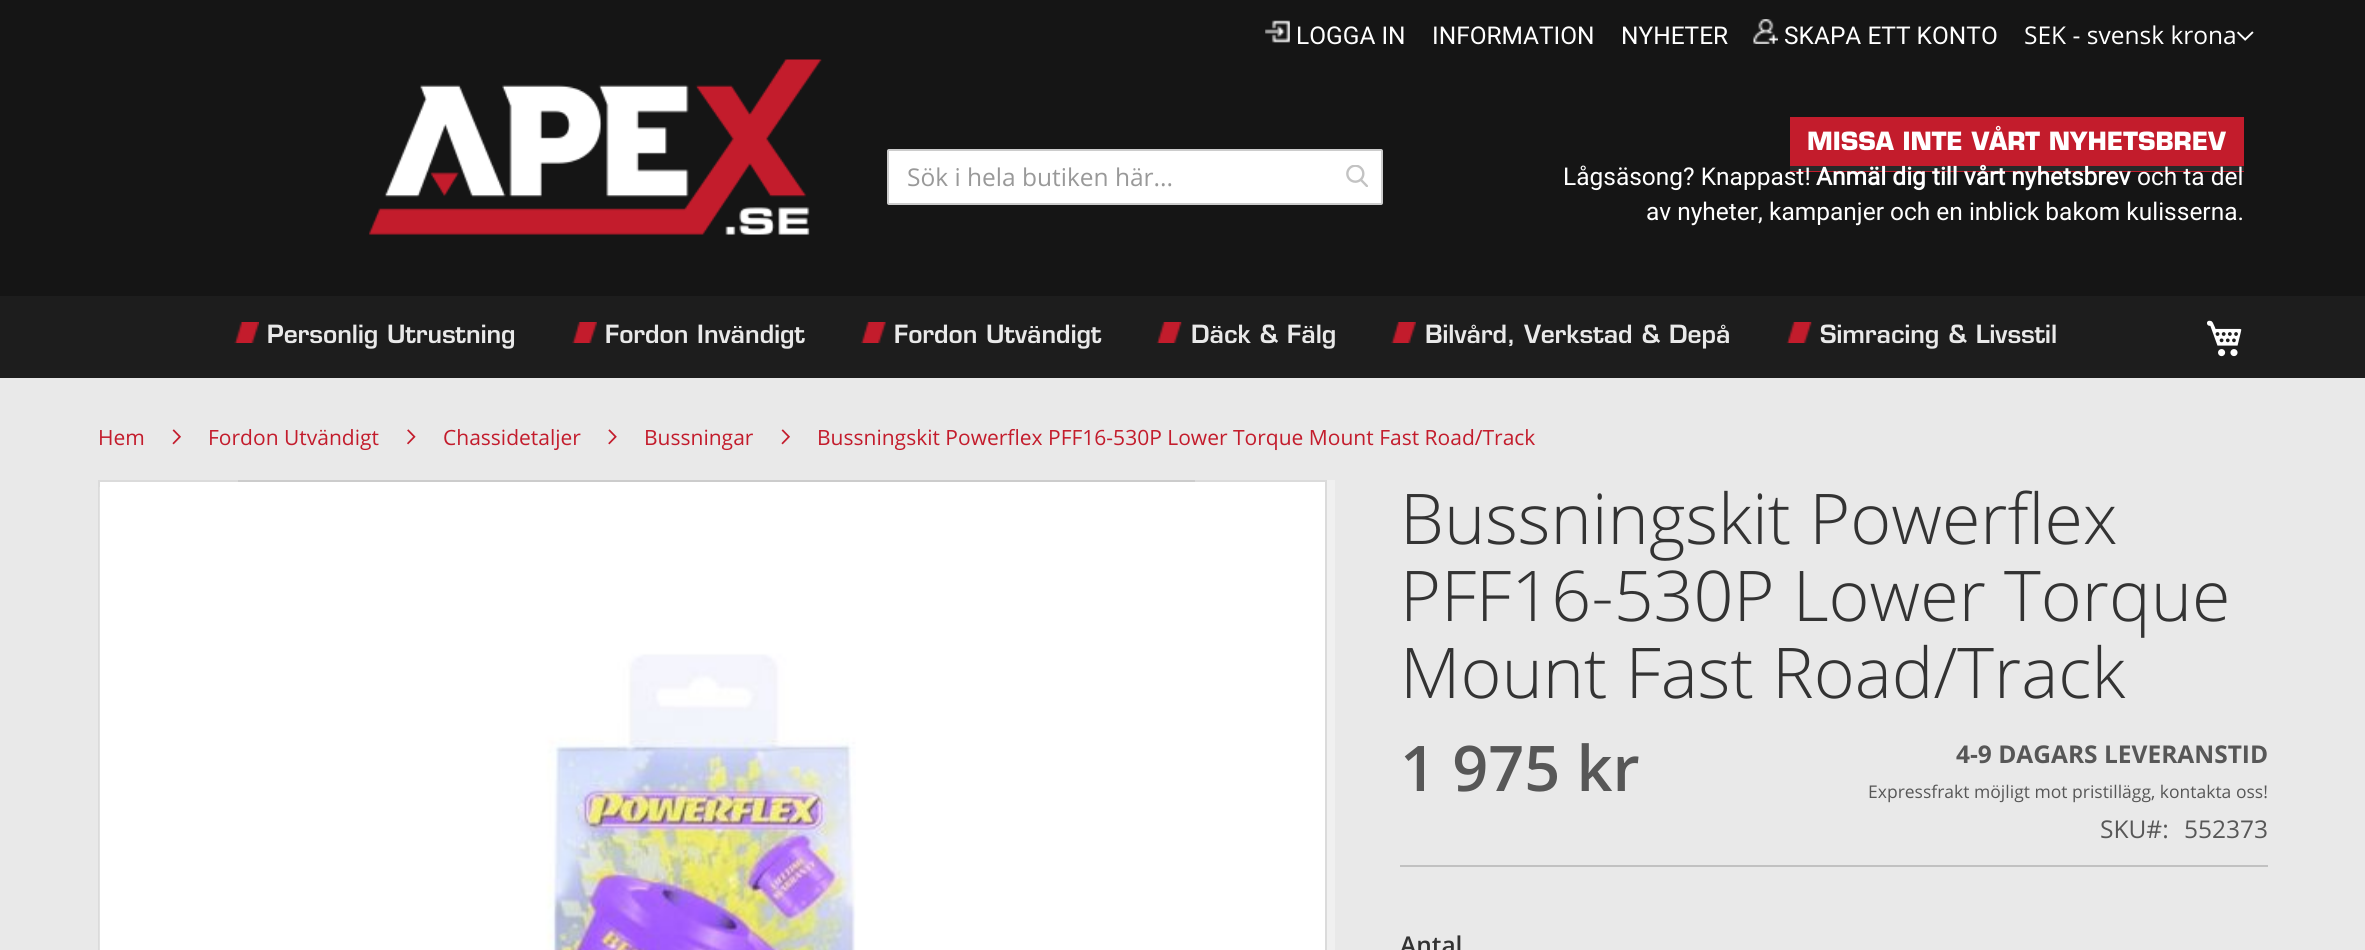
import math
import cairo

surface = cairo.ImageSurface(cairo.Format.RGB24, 2365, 950)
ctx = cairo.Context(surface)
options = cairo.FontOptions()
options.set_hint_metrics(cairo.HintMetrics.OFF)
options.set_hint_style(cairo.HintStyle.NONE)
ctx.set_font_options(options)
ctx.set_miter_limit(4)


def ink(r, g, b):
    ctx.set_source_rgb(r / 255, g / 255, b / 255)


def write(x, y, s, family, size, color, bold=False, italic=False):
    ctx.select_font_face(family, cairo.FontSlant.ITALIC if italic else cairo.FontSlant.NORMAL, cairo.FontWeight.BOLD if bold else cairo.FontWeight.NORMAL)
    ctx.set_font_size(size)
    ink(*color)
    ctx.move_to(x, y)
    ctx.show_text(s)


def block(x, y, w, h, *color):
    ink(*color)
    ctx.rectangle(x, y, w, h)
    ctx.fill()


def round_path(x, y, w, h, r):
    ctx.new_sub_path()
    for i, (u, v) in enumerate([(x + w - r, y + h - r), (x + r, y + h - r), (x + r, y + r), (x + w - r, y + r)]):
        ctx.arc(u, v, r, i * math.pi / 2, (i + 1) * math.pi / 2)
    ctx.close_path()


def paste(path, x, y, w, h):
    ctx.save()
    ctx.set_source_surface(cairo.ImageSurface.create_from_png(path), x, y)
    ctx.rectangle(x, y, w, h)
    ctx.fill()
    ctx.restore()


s1 = dict(family="Roboto", size=24.5, color=(255, 255, 255))
s2 = dict(family="Open Sans", size=24.5, color=(255, 255, 255))
s3 = dict(family="Open Sans", size=24.5, color=(153, 153, 153))
s4 = dict(family="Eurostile", size=24.5, color=(255, 255, 255), bold=True, italic=True)
s5 = dict(family="Roboto", size=24.5, color=(255, 255, 255), bold=True)
s6 = dict(family="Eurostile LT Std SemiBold", size=24.5, color=(233, 233, 233))
s7 = dict(family="Open Sans", size=21, color=(195, 28, 44))
s8 = dict(family="Open Sans Light", size=70, color=(51, 51, 51))
s9 = dict(family="Open Sans SemiBold", size=63, color=(87, 87, 87))
s10 = dict(family="Open Sans", size=24.5, color=(87, 87, 87), bold=True)
s11 = dict(family="Open Sans", size=17.5, color=(87, 87, 87))
s12 = dict(family="Open Sans", size=24.5, color=(87, 87, 87))
s13 = dict(family="Open Sans SemiBold", size=24.5, color=(51, 51, 51))

ink(233, 233, 233)
ctx.paint()
block(0, 0, 2365, 296, 21, 21, 21)
paste("pic1.png", 1265, 20, 25, 23)
write(1296, 44, "LOGGA IN", **s1)
write(1432, 44, "INFORMATION", **s1)
write(1621, 44, "NYHETER", **s1)
paste("pic2.png", 1753, 19, 25, 25)
write(1784, 44, "SKAPA ETT KONTO", **s1)
write(2024, 44, "SEK - svensk krona", **s2)
paste("pic3.png", 2237, 31, 17, 10)
paste("pic4.png", 369, 59, 453, 176)
round_path(888, 150, 494, 54, 1)
ctx.fill_preserve()
ink(204, 204, 204)
ctx.stroke()
write(907, 186, "Sök i hela butiken här...", **s3)
paste("pic5.png", 1346, 165, 22, 22)
block(1790, 117, 454, 55, 195, 28, 44)
write(1807, 150, "MISSA INTE VÅRT NYHETSBREV", **s4)
block(1790, 166, 454, 5, 41, 41, 41)
write(1563, 185, "Lågsäsong? Knappast!", **s1)
write(1816, 185, "Anmäl dig till vårt nyhetsbrev", **s5)
write(2137, 185, "och ta del", **s1)
write(1646, 220, "av nyheter, kampanjer och en inblick bakom kulisserna.", **s1)
block(0, 296, 2365, 82, 29, 29, 29)
paste("pic6.png", 234, 322, 25, 21)
write(267, 343, "Personlig Utrustning", **s6)
paste("pic7.png", 572, 322, 25, 21)
write(605, 343, "Fordon Invändigt", **s6)
paste("pic8.png", 861, 322, 25, 21)
write(894, 343, "Fordon Utvändigt", **s6)
paste("pic9.png", 1156, 322, 26, 21)
write(1191, 343, "Däck & Fälg", **s6)
paste("pic10.png", 1391, 322, 25, 21)
write(1425, 343, "Bilvård, Verkstad & Depå", **s6)
paste("pic9.png", 1786, 322, 26, 21)
write(1820, 343, "Simracing & Livsstil", **s6)
paste("pic11.png", 2207, 320, 35, 37)
write(98, 445, "Hem", **s7)
paste("pic12.png", 172, 429, 9, 16)
write(208, 445, "Fordon Utvändigt", **s7)
paste("pic13.png", 407, 429, 9, 16)
write(443, 445, "Chassidetaljer", **s7)
paste("pic14.png", 608, 429, 9, 16)
write(644, 445, "Bussningar", **s7)
paste("pic12.png", 781, 429, 9, 16)
write(817, 445, "Bussningskit Powerflex PFF16-530P Lower Torque Mount Fast Road/Track", **s7)
ink(255, 255, 255)
ctx.rectangle(99, 481, 1227, 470)
ctx.fill_preserve()
ink(204, 204, 204)
ctx.stroke()
paste("pic15.png", 99, 487, 757, 463)
ctx.set_source_rgba(1, 1, 1, 0.3)
ctx.rectangle(98, 480, 140, 470)
ctx.fill()
ctx.rectangle(1195, 480, 140, 470)
ctx.fill()
write(1400, 544, "Bussningskit Powerflex", **s8)
write(1400, 621, "PFF16-530P Lower Torque", **s8)
write(1400, 698, "Mount Fast Road/Track", **s8)
block(1400, 865, 868, 2, 193, 193, 193)
write(1400, 791, "1 975 kr", **s9)
write(1956, 763, "4-9 DAGARS LEVERANSTID", **s10)
write(1868, 798, "Expressfrakt möjligt mot pristillägg, kontakta oss!", **s11)
write(2100, 838, "SKU#:", **s12)
write(2184, 838, "552373", **s12)
write(1400, 954, "Antal", **s13)
surface.write_to_png("screenshot.png")
